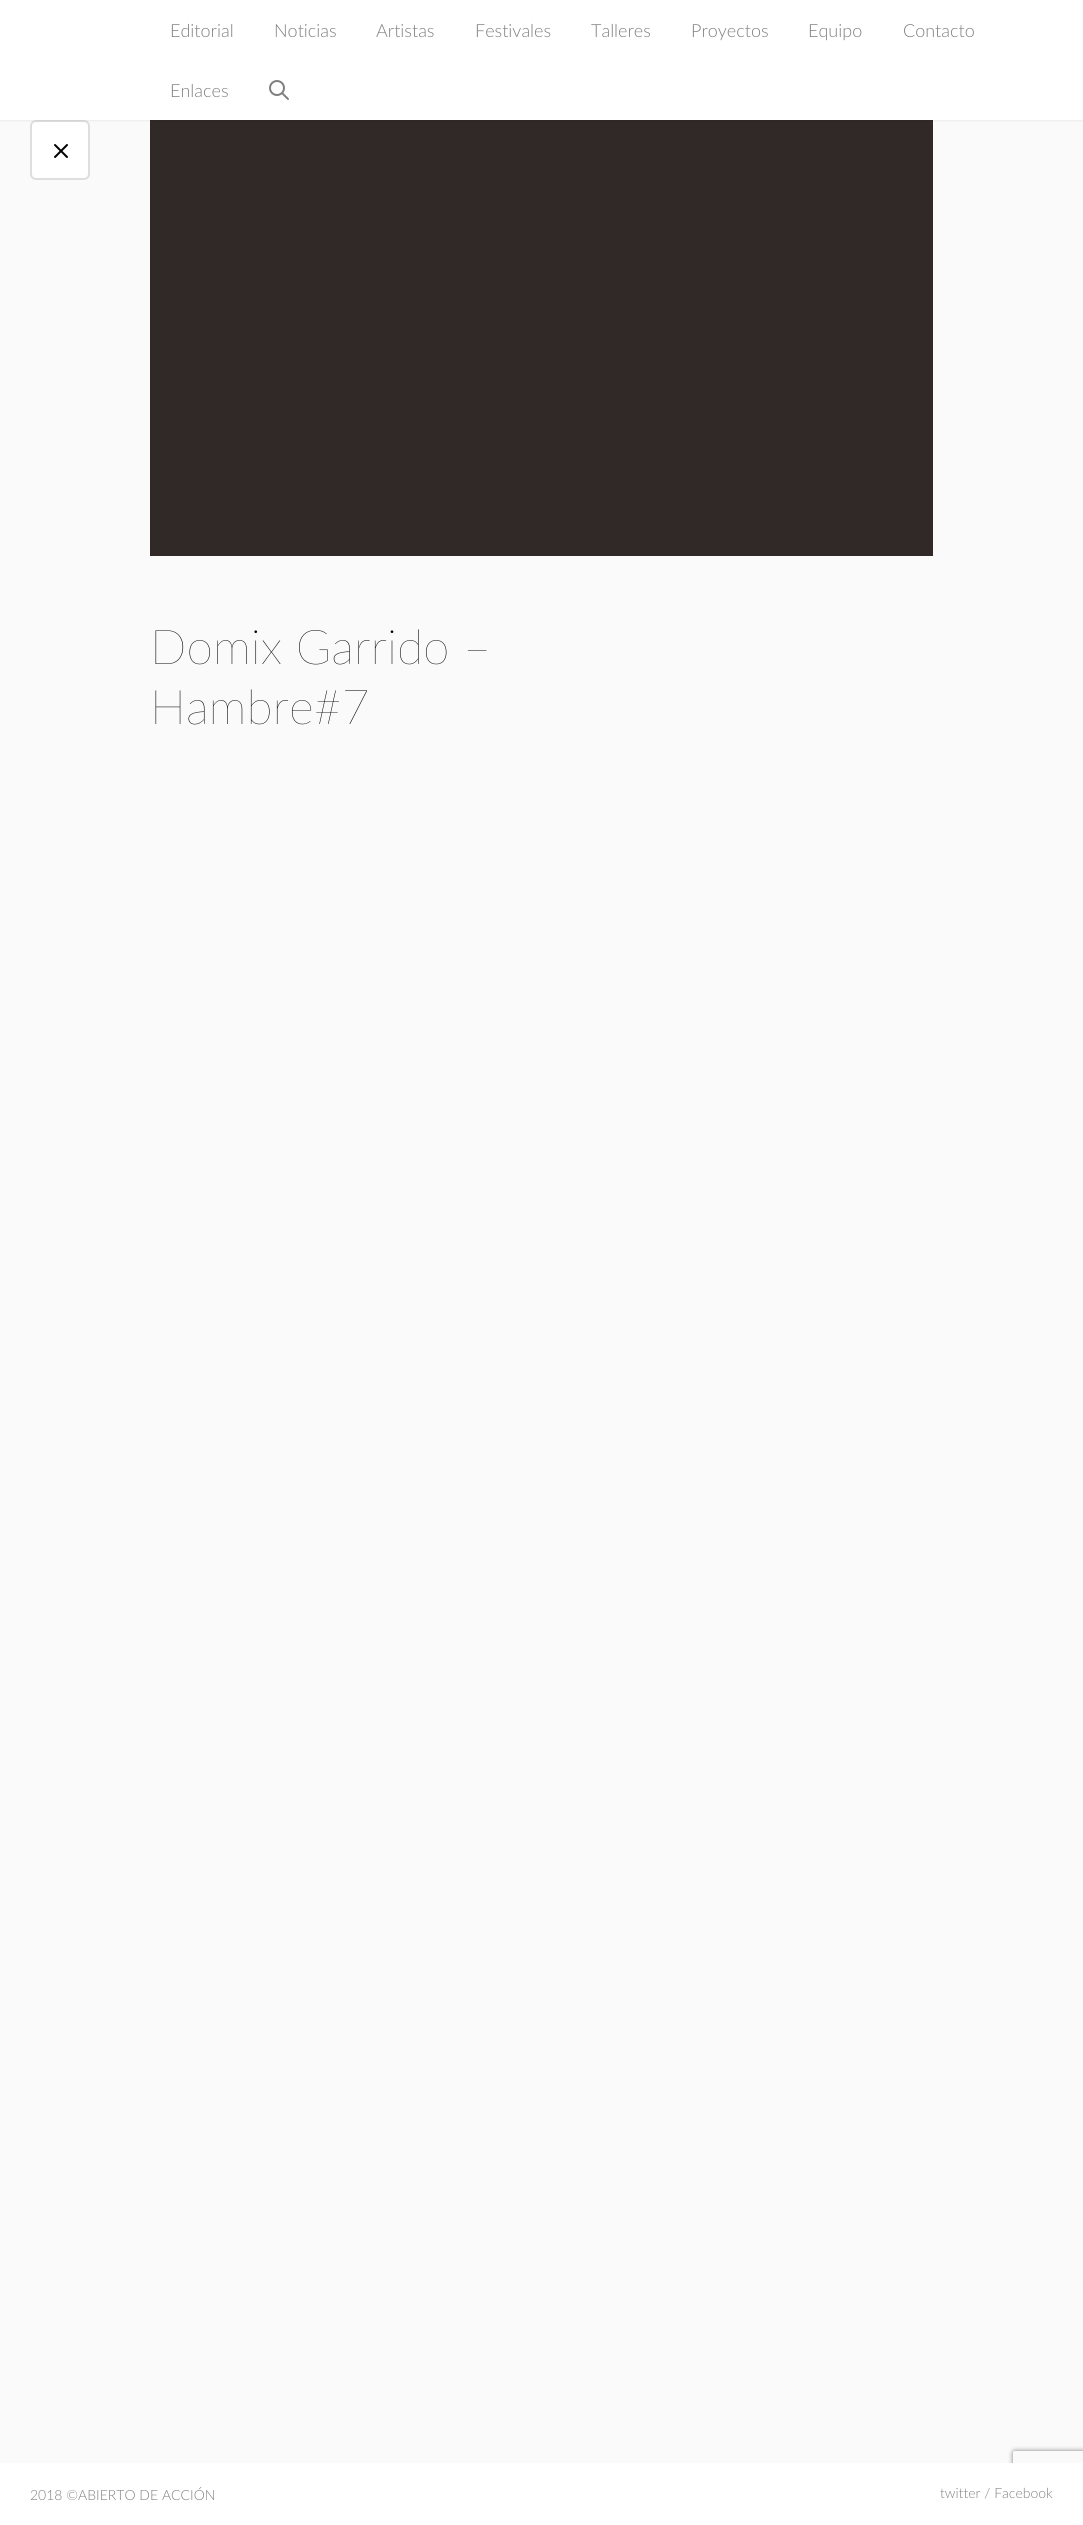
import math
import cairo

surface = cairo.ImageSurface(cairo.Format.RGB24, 1083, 2525)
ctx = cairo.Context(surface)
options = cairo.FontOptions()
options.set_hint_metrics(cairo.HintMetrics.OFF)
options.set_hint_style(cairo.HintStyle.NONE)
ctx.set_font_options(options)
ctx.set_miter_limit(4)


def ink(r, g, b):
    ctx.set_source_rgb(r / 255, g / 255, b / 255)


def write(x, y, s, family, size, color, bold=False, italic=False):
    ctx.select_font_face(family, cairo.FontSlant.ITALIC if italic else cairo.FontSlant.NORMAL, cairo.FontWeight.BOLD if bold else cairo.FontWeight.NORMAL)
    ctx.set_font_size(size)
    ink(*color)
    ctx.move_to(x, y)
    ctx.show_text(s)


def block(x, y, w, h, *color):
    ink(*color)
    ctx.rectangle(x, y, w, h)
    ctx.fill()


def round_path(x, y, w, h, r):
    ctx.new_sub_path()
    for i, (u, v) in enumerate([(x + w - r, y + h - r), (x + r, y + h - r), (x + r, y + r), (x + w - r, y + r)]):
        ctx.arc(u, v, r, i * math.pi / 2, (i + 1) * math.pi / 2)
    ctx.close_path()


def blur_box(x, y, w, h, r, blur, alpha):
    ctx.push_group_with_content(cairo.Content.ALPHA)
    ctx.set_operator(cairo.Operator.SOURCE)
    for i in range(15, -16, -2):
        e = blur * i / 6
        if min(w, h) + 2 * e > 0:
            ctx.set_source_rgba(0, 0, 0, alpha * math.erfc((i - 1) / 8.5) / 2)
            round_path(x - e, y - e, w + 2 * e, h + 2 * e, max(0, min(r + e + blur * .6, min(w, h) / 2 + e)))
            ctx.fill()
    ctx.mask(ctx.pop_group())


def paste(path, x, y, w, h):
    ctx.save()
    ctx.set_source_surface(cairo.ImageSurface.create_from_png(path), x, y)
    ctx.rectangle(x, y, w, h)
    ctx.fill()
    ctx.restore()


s1 = dict(family="Lato Light", size=18, color=(128, 128, 128))
s2 = dict(family="Lato ExtraLight", size=48, color=(0, 0, 0))
s3 = dict(family="Lato Light", size=14, color=(128, 128, 128))

ink(250, 250, 250)
ctx.paint()
ink(255, 255, 255)
round_path(31, 121, 58, 58, 5)
ctx.fill_preserve()
ink(222, 222, 222)
ctx.stroke()
block(150, 120, 783, 436, 48, 41, 40)
ink(0, 0, 0)
blur_box(0, 1, 1083, 120, 0, 1, 0.06)
block(0, 0, 1083, 120, 255, 255, 255)
write(170, 37, "Editorial", **s1)
write(274, 37, "Noticias", **s1)
write(376, 37, "Artistas", **s1)
write(475, 37, "Festivales", **s1)
write(591, 37, "Talleres", **s1)
write(691, 37, "Proyectos", **s1)
write(808, 37, "Equipo", **s1)
write(903, 37, "Contacto", **s1)
write(170, 97, "Enlaces", **s1)
paste("pic1.png", 269, 80, 20, 20)
paste("pic2.png", 54, 144, 14, 14)
write(150, 664, "Domix Garrido –", **s2)
write(150, 724, "Hambre#7", **s2)
ctx.save()
ctx.set_fill_rule(cairo.FillRule.EVEN_ODD)
ctx.new_path()
ctx.move_to(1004, 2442)
ctx.line_to(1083, 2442)
ctx.line_to(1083, 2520)
ctx.line_to(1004, 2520)
ctx.close_path()
ctx.move_to(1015, 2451)
ctx.line_to(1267, 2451)
ctx.curve_to(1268, 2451, 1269, 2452, 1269, 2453)
ctx.line_to(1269, 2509)
ctx.curve_to(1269, 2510, 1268, 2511, 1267, 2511)
ctx.line_to(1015, 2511)
ctx.curve_to(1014, 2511, 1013, 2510, 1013, 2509)
ctx.line_to(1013, 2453)
ctx.curve_to(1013, 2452, 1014, 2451, 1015, 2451)
ctx.close_path()
ctx.clip()
ink(128, 128, 128)
blur_box(1013, 2451, 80, 60, 2, 2.5, 1)
ctx.restore()
block(0, 2463, 1083, 62, 255, 255, 255)
write(30, 2500, "2018 ©ABIERTO DE ACCIÓN", **s3)
write(940, 2498, "twitter / Facebook", **s3)
surface.write_to_png("screenshot.png")
